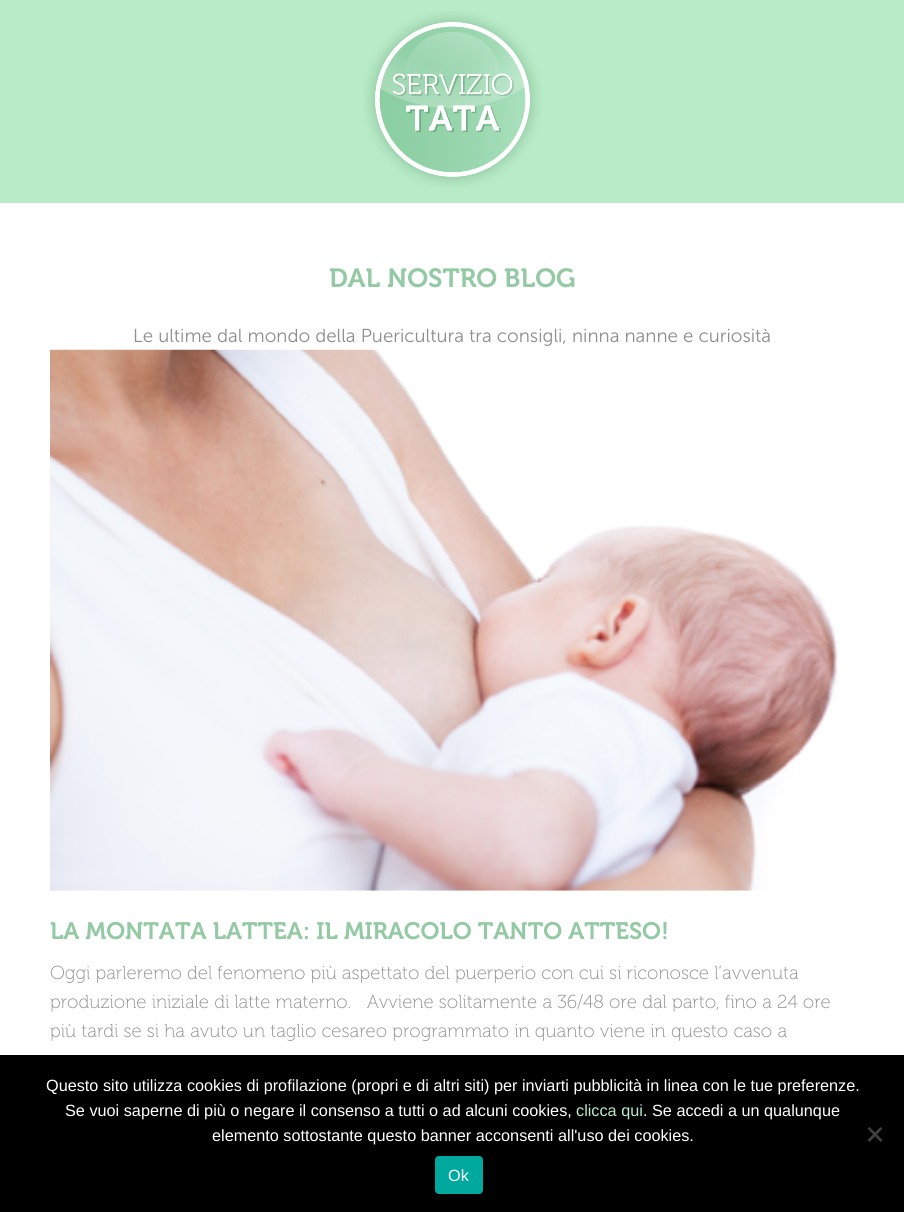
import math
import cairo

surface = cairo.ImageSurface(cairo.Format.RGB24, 904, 1212)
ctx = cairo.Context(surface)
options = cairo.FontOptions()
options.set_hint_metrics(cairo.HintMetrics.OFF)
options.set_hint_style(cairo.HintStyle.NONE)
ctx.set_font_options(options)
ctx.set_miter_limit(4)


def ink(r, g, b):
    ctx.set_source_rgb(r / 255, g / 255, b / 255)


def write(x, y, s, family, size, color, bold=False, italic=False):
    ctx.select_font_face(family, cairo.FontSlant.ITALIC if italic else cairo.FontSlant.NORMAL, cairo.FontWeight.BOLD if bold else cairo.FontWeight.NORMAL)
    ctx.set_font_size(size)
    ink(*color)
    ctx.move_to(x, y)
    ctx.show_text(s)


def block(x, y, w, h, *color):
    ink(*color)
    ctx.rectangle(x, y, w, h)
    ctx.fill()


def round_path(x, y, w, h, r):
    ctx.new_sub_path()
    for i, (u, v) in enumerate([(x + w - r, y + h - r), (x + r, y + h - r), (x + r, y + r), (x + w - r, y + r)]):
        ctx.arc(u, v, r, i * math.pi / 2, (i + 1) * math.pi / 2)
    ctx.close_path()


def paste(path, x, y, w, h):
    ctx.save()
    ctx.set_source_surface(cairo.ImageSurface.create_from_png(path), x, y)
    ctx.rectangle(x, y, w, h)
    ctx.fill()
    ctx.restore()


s1 = dict(family="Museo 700 SemiBold", size=26.25, color=(147, 202, 164))
s2 = dict(family="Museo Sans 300 Light", size=18.75, color=(142, 142, 142))
s3 = dict(family="Museo 700 SemiBold", size=23.75, color=(147, 202, 164))
s4 = dict(family="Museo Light", size=18.75, color=(142, 142, 142))
s5 = dict(family="Liberation Sans", size=16.25, color=(255, 255, 255))
s6 = dict(family="Liberation Sans", size=16.25, color=(184, 236, 200))

ink(255, 255, 255)
ctx.paint()
block(0, 0, 904, 203, 184, 236, 200)
paste("pic1.png", 364, 11, 177, 177)
write(329, 287, "DAL NOSTRO BLOG", **s1)
write(133, 342, "Le ultime dal mondo della Puericultura tra consigli, ninna nanne e curiosità", **s2)
paste("pic2.png", 50, 349, 788, 542)
write(50, 939, "LA MONTATA LATTEA: IL MIRACOLO TANTO ATTESO!", **s3)
write(50, 979, "Oggi parleremo del fenomeno più aspettato del puerperio con cui si riconosce l’avvenuta", **s4)
write(50, 1008, "produzione iniziale di latte materno.   Avviene solitamente a 36/48 ore dal parto, fino a 24 ore", **s4)
write(50, 1037, "più tardi se si ha avuto un taglio cesareo programmato in quanto viene in questo caso a", **s4)
block(0, 1055, 904, 157, 0, 0, 0)
write(46, 1091, "Questo sito utilizza cookies di profilazione (propri e di altri siti) per inviarti pubblicità in linea con le tue preferenze.", **s5)
write(65, 1116, "Se vuoi saperne di più o negare il consenso a tutti o ad alcuni cookies,", **s5)
write(576, 1116, "clicca qui", **s6)
write(643, 1116, ". Se accedi a un qualunque", **s5)
write(212, 1141, "elemento sottostante questo banner acconsenti all'uso dei cookies.", **s5)
ink(64, 64, 64)
ctx.new_path()
ctx.move_to(880.5, 1127)
ctx.line_to(882.5, 1128.5)
ctx.line_to(869.5, 1142)
ctx.line_to(867.5, 1140)
ctx.close_path()
ctx.fill()
ctx.new_path()
ctx.move_to(867.5, 1128.5)
ctx.line_to(869.5, 1127)
ctx.line_to(882.5, 1140)
ctx.line_to(880.5, 1142)
ctx.close_path()
ctx.fill()
ink(0, 169, 157)
round_path(435, 1156, 48, 38, 4)
ctx.fill()
write(448, 1181, "Ok", **s5)
surface.write_to_png("screenshot.png")
